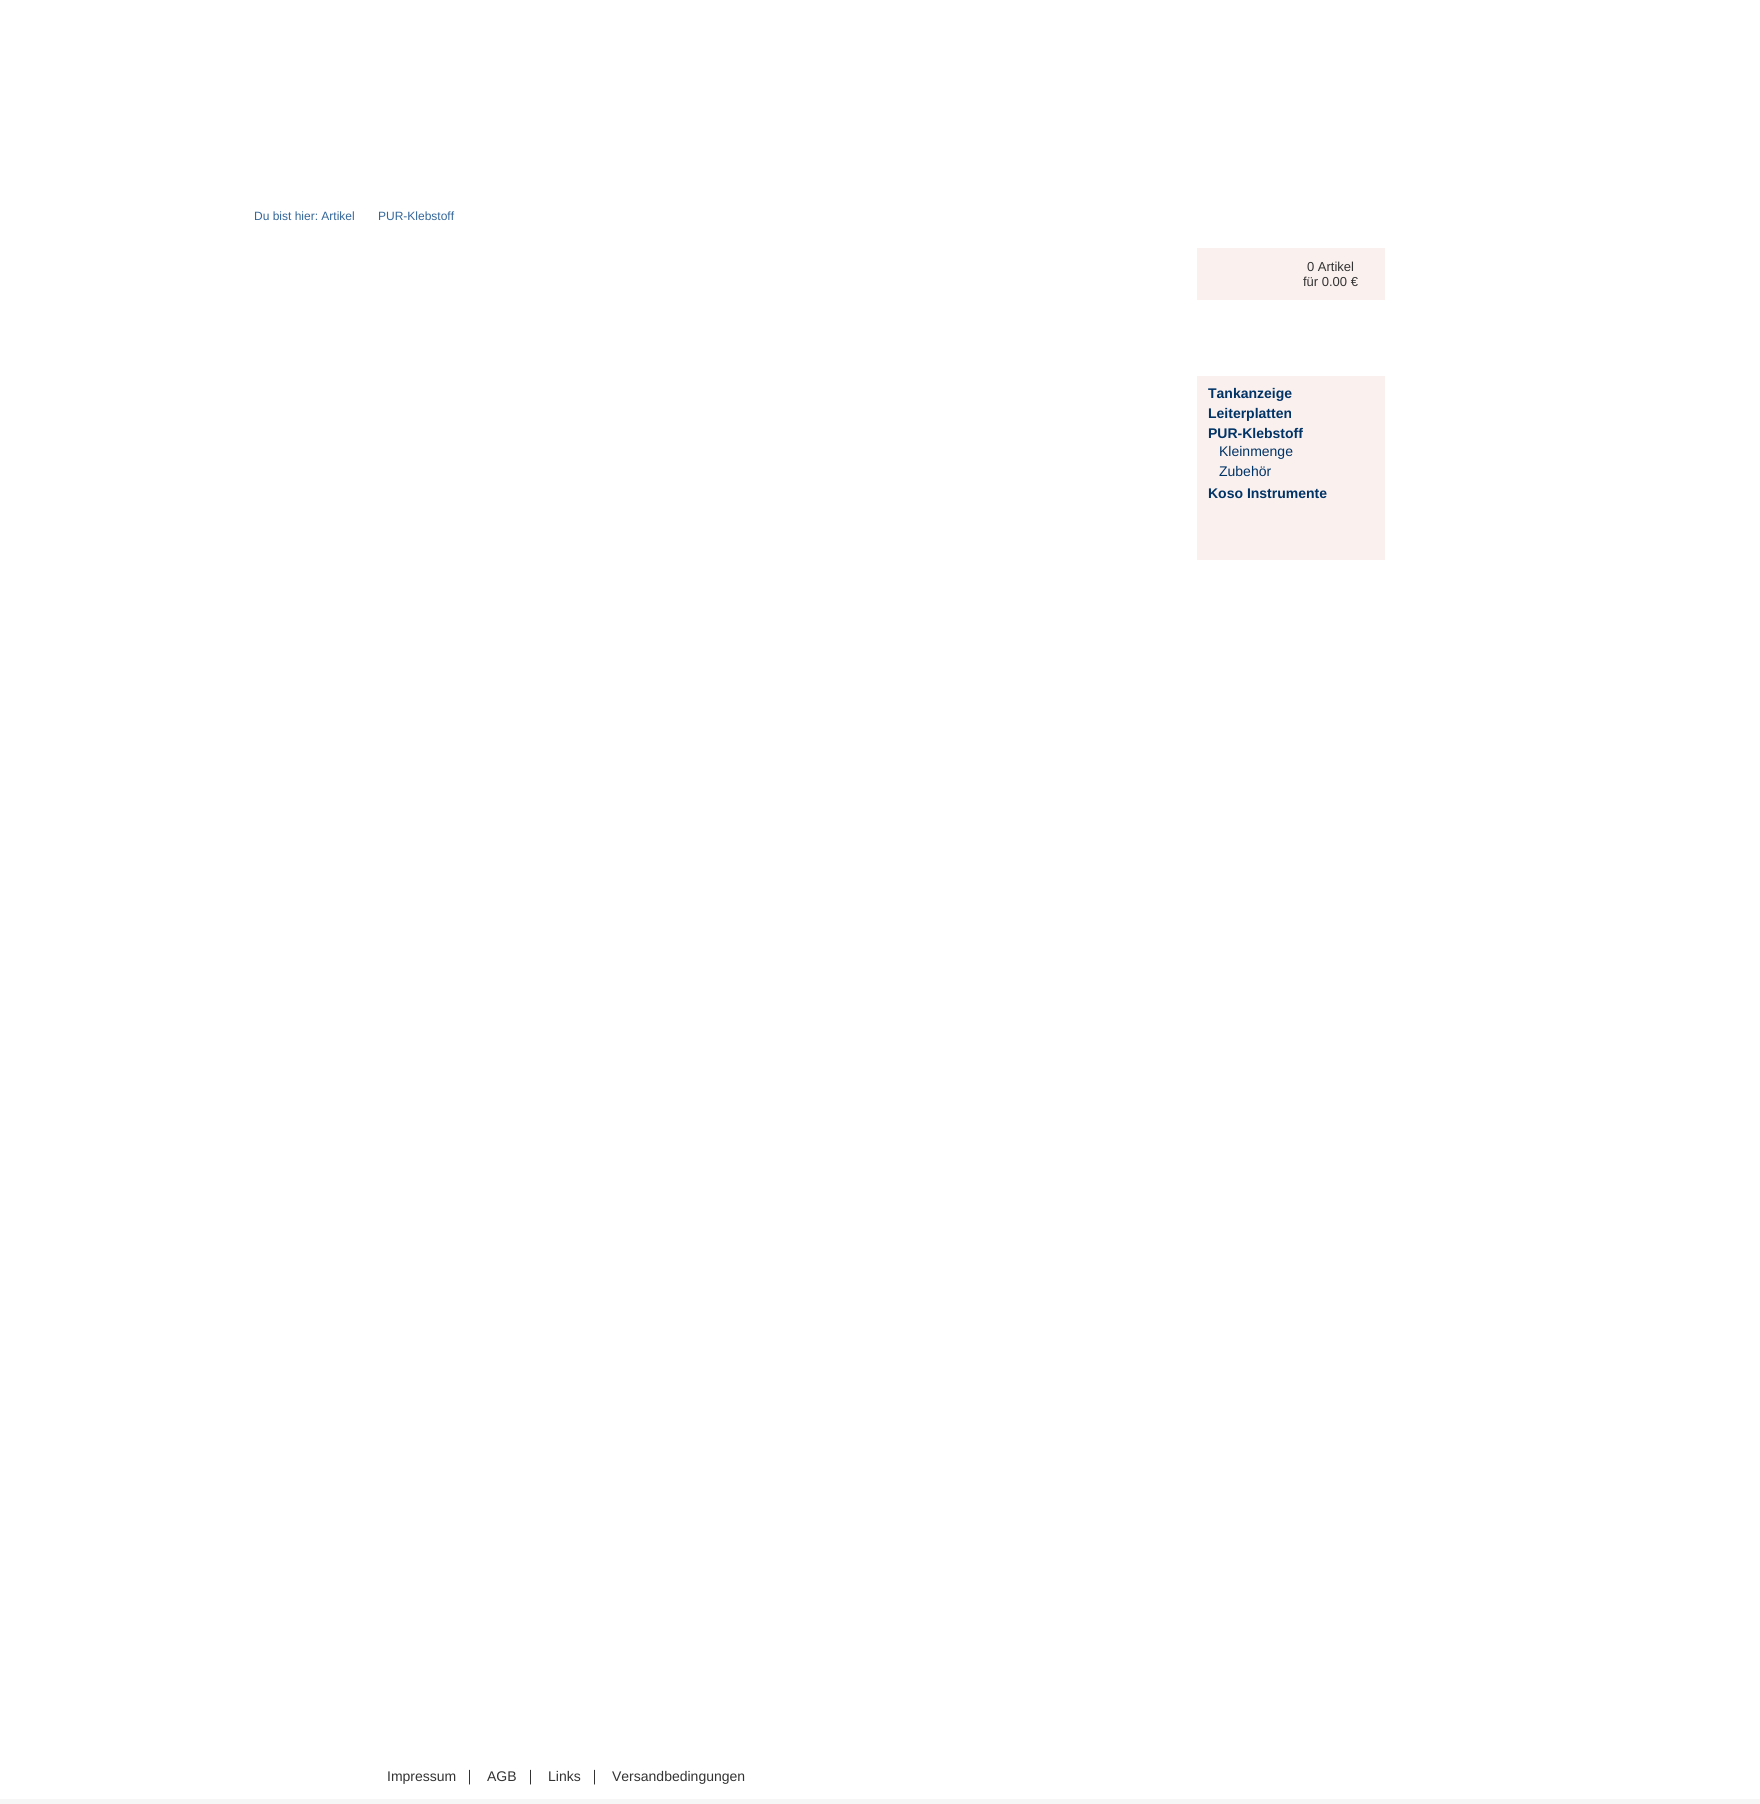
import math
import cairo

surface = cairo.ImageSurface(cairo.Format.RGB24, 1760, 1804)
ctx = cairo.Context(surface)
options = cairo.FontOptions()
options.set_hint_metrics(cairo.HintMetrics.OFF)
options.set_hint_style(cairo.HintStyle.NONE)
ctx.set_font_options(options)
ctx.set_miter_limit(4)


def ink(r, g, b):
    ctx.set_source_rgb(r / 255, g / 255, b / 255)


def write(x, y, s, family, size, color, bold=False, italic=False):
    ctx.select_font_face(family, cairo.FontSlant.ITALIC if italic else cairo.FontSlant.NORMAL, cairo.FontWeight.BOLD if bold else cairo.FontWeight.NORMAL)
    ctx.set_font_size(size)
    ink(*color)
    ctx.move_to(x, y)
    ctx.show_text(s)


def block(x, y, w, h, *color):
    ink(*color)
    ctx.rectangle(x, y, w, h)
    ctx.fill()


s1 = dict(family="Liberation Sans", size=12, color=(51, 102, 153))
s2 = dict(family="Liberation Sans", size=13, color=(51, 51, 51))
s3 = dict(family="Liberation Sans", size=14, color=(0, 51, 102), bold=True)
s4 = dict(family="Liberation Sans", size=14, color=(0, 51, 102))
s5 = dict(family="Liberation Sans", size=14, color=(51, 51, 51))
s6 = dict(family="Liberation Serif", size=16, color=(0, 0, 0))

ink(255, 255, 255)
ctx.paint()
write(254, 220, "Du bist hier: Artikel", **s1)
write(378, 220, "PUR-Klebstoff", **s1)
block(1197, 248, 188, 52, 250, 240, 238)
write(1307, 271, "0 Artikel", **s2)
write(1303, 286, "für 0.00 €", **s2)
block(1197, 376, 188, 184, 250, 240, 238)
write(1208, 398, "Tankanzeige", **s3)
write(1208, 418, "Leiterplatten", **s3)
write(1208, 438, "PUR-Klebstoff", **s3)
write(1219, 456, "Kleinmenge", **s4)
write(1219, 476, "Zubehör", **s4)
write(1208, 498, "Koso Instrumente", **s3)
write(387, 1781, "Impressum", **s5)
write(468, 1781, "|", **s6)
write(487, 1781, "AGB", **s5)
write(529, 1781, "|", **s6)
write(548, 1781, "Links", **s5)
write(593, 1781, "|", **s6)
write(612, 1781, "Versandbedingungen", **s5)
block(0, 1799, 1760, 5, 246, 246, 246)
surface.write_to_png("screenshot.png")
